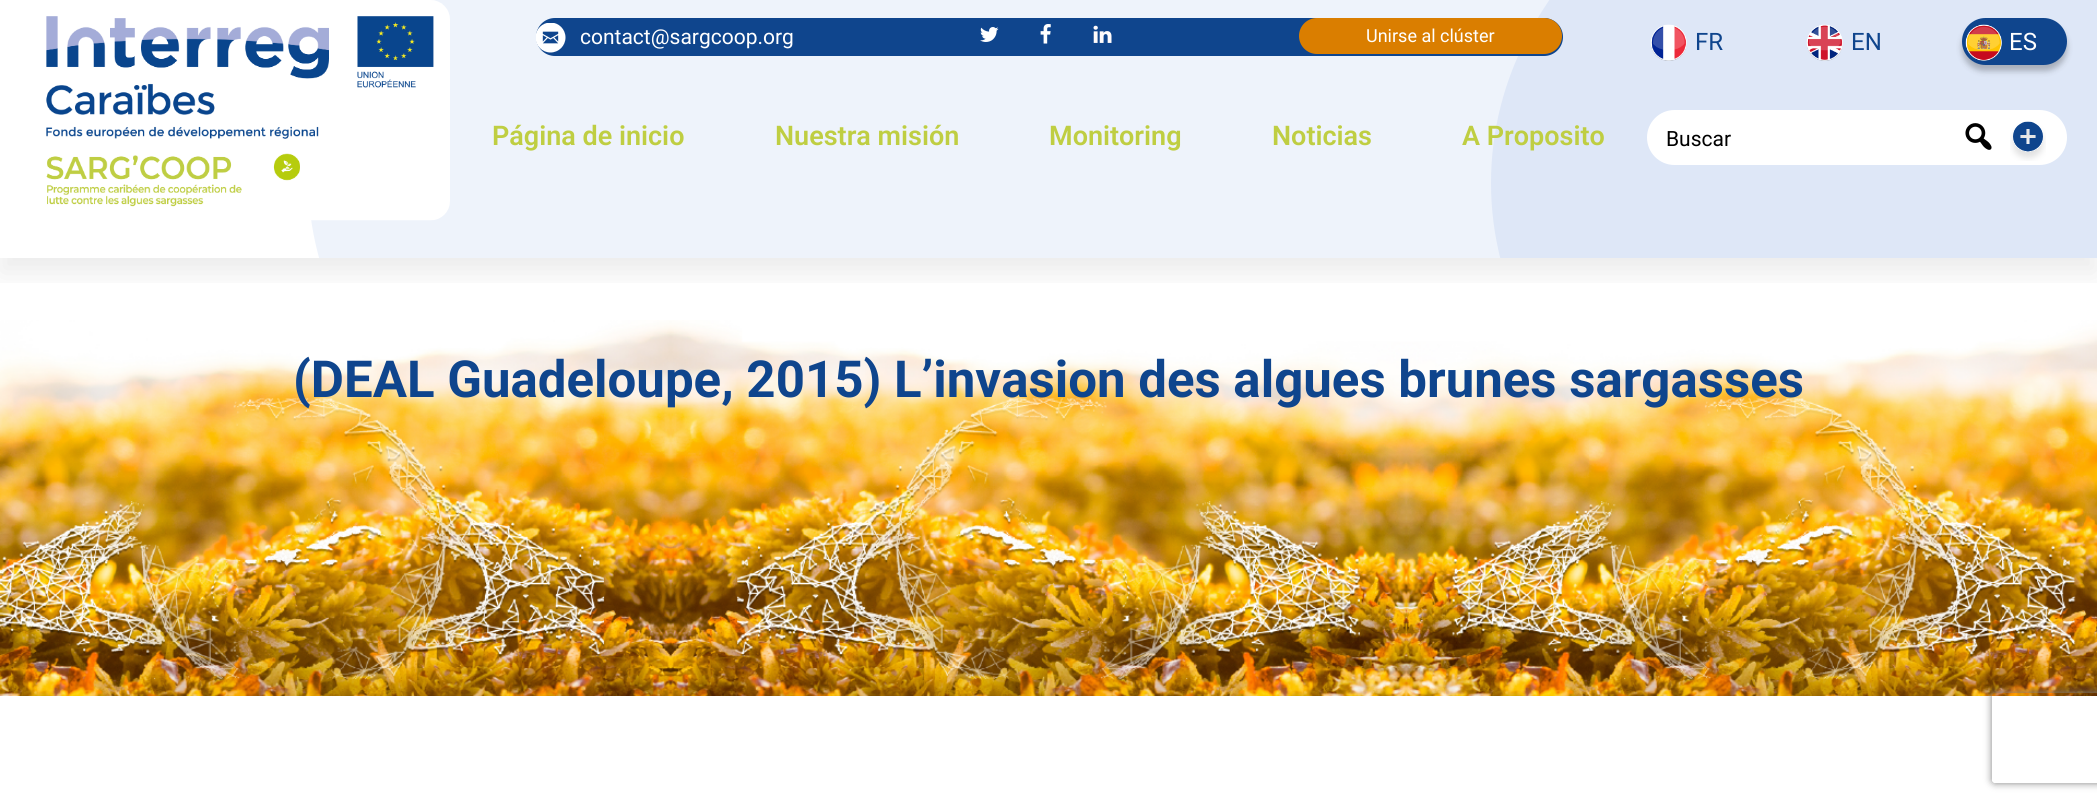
import math
import cairo

surface = cairo.ImageSurface(cairo.Format.RGB24, 2097, 803)
ctx = cairo.Context(surface)
options = cairo.FontOptions()
options.set_hint_metrics(cairo.HintMetrics.OFF)
options.set_hint_style(cairo.HintStyle.NONE)
ctx.set_font_options(options)
ctx.set_miter_limit(4)


def ink(r, g, b):
    ctx.set_source_rgb(r / 255, g / 255, b / 255)


def write(x, y, s, family, size, color, bold=False, italic=False):
    ctx.select_font_face(family, cairo.FontSlant.ITALIC if italic else cairo.FontSlant.NORMAL, cairo.FontWeight.BOLD if bold else cairo.FontWeight.NORMAL)
    ctx.set_font_size(size)
    ink(*color)
    ctx.move_to(x, y)
    ctx.show_text(s)


def round_path(x, y, w, h, r):
    ctx.new_sub_path()
    for i, (u, v) in enumerate([(x + w - r, y + h - r), (x + r, y + h - r), (x + r, y + r), (x + w - r, y + r)]):
        ctx.arc(u, v, r, i * math.pi / 2, (i + 1) * math.pi / 2)
    ctx.close_path()


def blur_box(x, y, w, h, r, blur, alpha):
    ctx.push_group_with_content(cairo.Content.ALPHA)
    ctx.set_operator(cairo.Operator.SOURCE)
    for i in range(15, -16, -2):
        e = blur * i / 6
        if min(w, h) + 2 * e > 0:
            ctx.set_source_rgba(0, 0, 0, alpha * math.erfc((i - 1) / 8.5) / 2)
            round_path(x - e, y - e, w + 2 * e, h + 2 * e, max(0, min(r + e + blur * .6, min(w, h) / 2 + e)))
            ctx.fill()
    ctx.mask(ctx.pop_group())


def paste(path, x, y, w, h):
    ctx.save()
    ctx.set_source_surface(cairo.ImageSurface.create_from_png(path), x, y)
    ctx.rectangle(x, y, w, h)
    ctx.fill()
    ctx.restore()


s1 = dict(family="Roboto", size=21, color=(255, 255, 255))
s2 = dict(family="Roboto", size=18, color=(255, 255, 255))
s3 = dict(family="Roboto SemiBold", size=27, color=(191, 206, 66))
s4 = dict(family="Roboto", size=24, color=(15, 69, 141))
s5 = dict(family="Roboto", size=24, color=(255, 255, 255))
s6 = dict(family="Roboto", size=21, color=(0, 0, 0))
s7 = dict(family="Roboto", size=51, color=(15, 69, 141), bold=True)

ink(255, 255, 255)
ctx.paint()
ctx.save()
ctx.rectangle(308, 0, 1789, 258)
ctx.clip()
ink(238, 243, 251)
ctx.new_path()
ctx.move_to(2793, -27)
ctx.curve_to(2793, 183, 1047, 556, 784, 556)
ctx.curve_to(521, 556, 308, 386, 308, 176)
ctx.curve_to(308, -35, 521, -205, 784, -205)
ctx.curve_to(1047, -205, 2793, -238, 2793, -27)
ctx.close_path()
ctx.fill()
ctx.restore()
ctx.save()
ctx.rectangle(1491, 0, 606, 258)
ctx.clip()
ink(222, 231, 247)
ctx.new_path()
ctx.move_to(1967, -198)
ctx.curve_to(2230, -198, 2443, -27.5, 2443, 183)
ctx.curve_to(2443, 393.5, 2230, 564, 1967, 564)
ctx.curve_to(1704, 564, 1491, 393.5, 1491, 183)
ctx.curve_to(1491, -27.5, 1704, -198, 1967, -198)
ctx.close_path()
ctx.fill()
ctx.restore()
ink(15, 69, 141)
round_path(536, 18, 1027, 38, 19)
ctx.fill()
paste("pic2.png", 536, 23, 30, 30)
paste("pic3.png", 980, 27, 19, 15)
paste("pic4.png", 1040, 24, 11, 20)
paste("pic5.png", 1093, 25, 19, 18)
ink(218, 126, 0)
round_path(1299, 18, 263, 36, 18)
ctx.fill()
ctx.save()
ctx.rectangle(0, 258, 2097, 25)
ctx.clip()
ink(0, 0, 0)
blur_box(0, 71, 2097, 202, 0, 15, 0.08)
ctx.restore()
paste("pic1.png", 46, 0, 404, 221)
write(580, 44, "contact@sargcoop.org", **s1)
write(1366, 42, "Unirse al clúster", **s2)
write(492, 145, "Página de inicio", **s3)
write(775, 145, "Nuestra misión", **s3)
write(1049, 145, "Monitoring", **s3)
write(1272, 145, "Noticias", **s3)
write(1462, 145, "A Proposito", **s3)
paste("pic6.png", 1650, 24, 37, 37)
write(1695, 50, "FR", **s4)
paste("pic7.png", 1806, 24, 37, 37)
write(1851, 50, "EN", **s4)
ink(0, 0, 0)
blur_box(1962, 24, 105, 47, 23.5, 3, 0.25)
ink(15, 69, 141)
round_path(1962, 18, 105, 47, 23.5)
ctx.fill()
paste("pic8.png", 1965, 24, 37, 37)
write(2009, 50, "ES", **s5)
round_path(1647, 110, 420, 55, 27.5)
ctx.fill()
write(1666, 146, "Buscar", **s6)
paste("pic9.png", 1965, 123, 27, 27)
paste("pic10.png", 2010, 121, 36, 40)
paste("pic11.png", 0, 320, 2097, 376)
write(293, 397, "(DEAL Guadeloupe, 2015) L’invasion des algues brunes sargasses", **s7)
ctx.save()
ctx.set_fill_rule(cairo.FillRule.EVEN_ODD)
ctx.new_path()
ctx.move_to(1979, 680)
ctx.line_to(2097, 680)
ctx.line_to(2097, 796)
ctx.line_to(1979, 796)
ctx.close_path()
ctx.move_to(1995, 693)
ctx.line_to(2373, 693)
ctx.curve_to(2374.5, 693, 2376, 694.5, 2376, 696)
ctx.line_to(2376, 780)
ctx.curve_to(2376, 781.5, 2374.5, 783, 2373, 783)
ctx.line_to(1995, 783)
ctx.curve_to(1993.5, 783, 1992, 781.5, 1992, 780)
ctx.line_to(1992, 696)
ctx.curve_to(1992, 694.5, 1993.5, 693, 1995, 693)
ctx.close_path()
ctx.clip()
ink(128, 128, 128)
blur_box(1992, 693, 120, 90, 3, 4, 1)
ctx.restore()
surface.write_to_png("screenshot.png")
